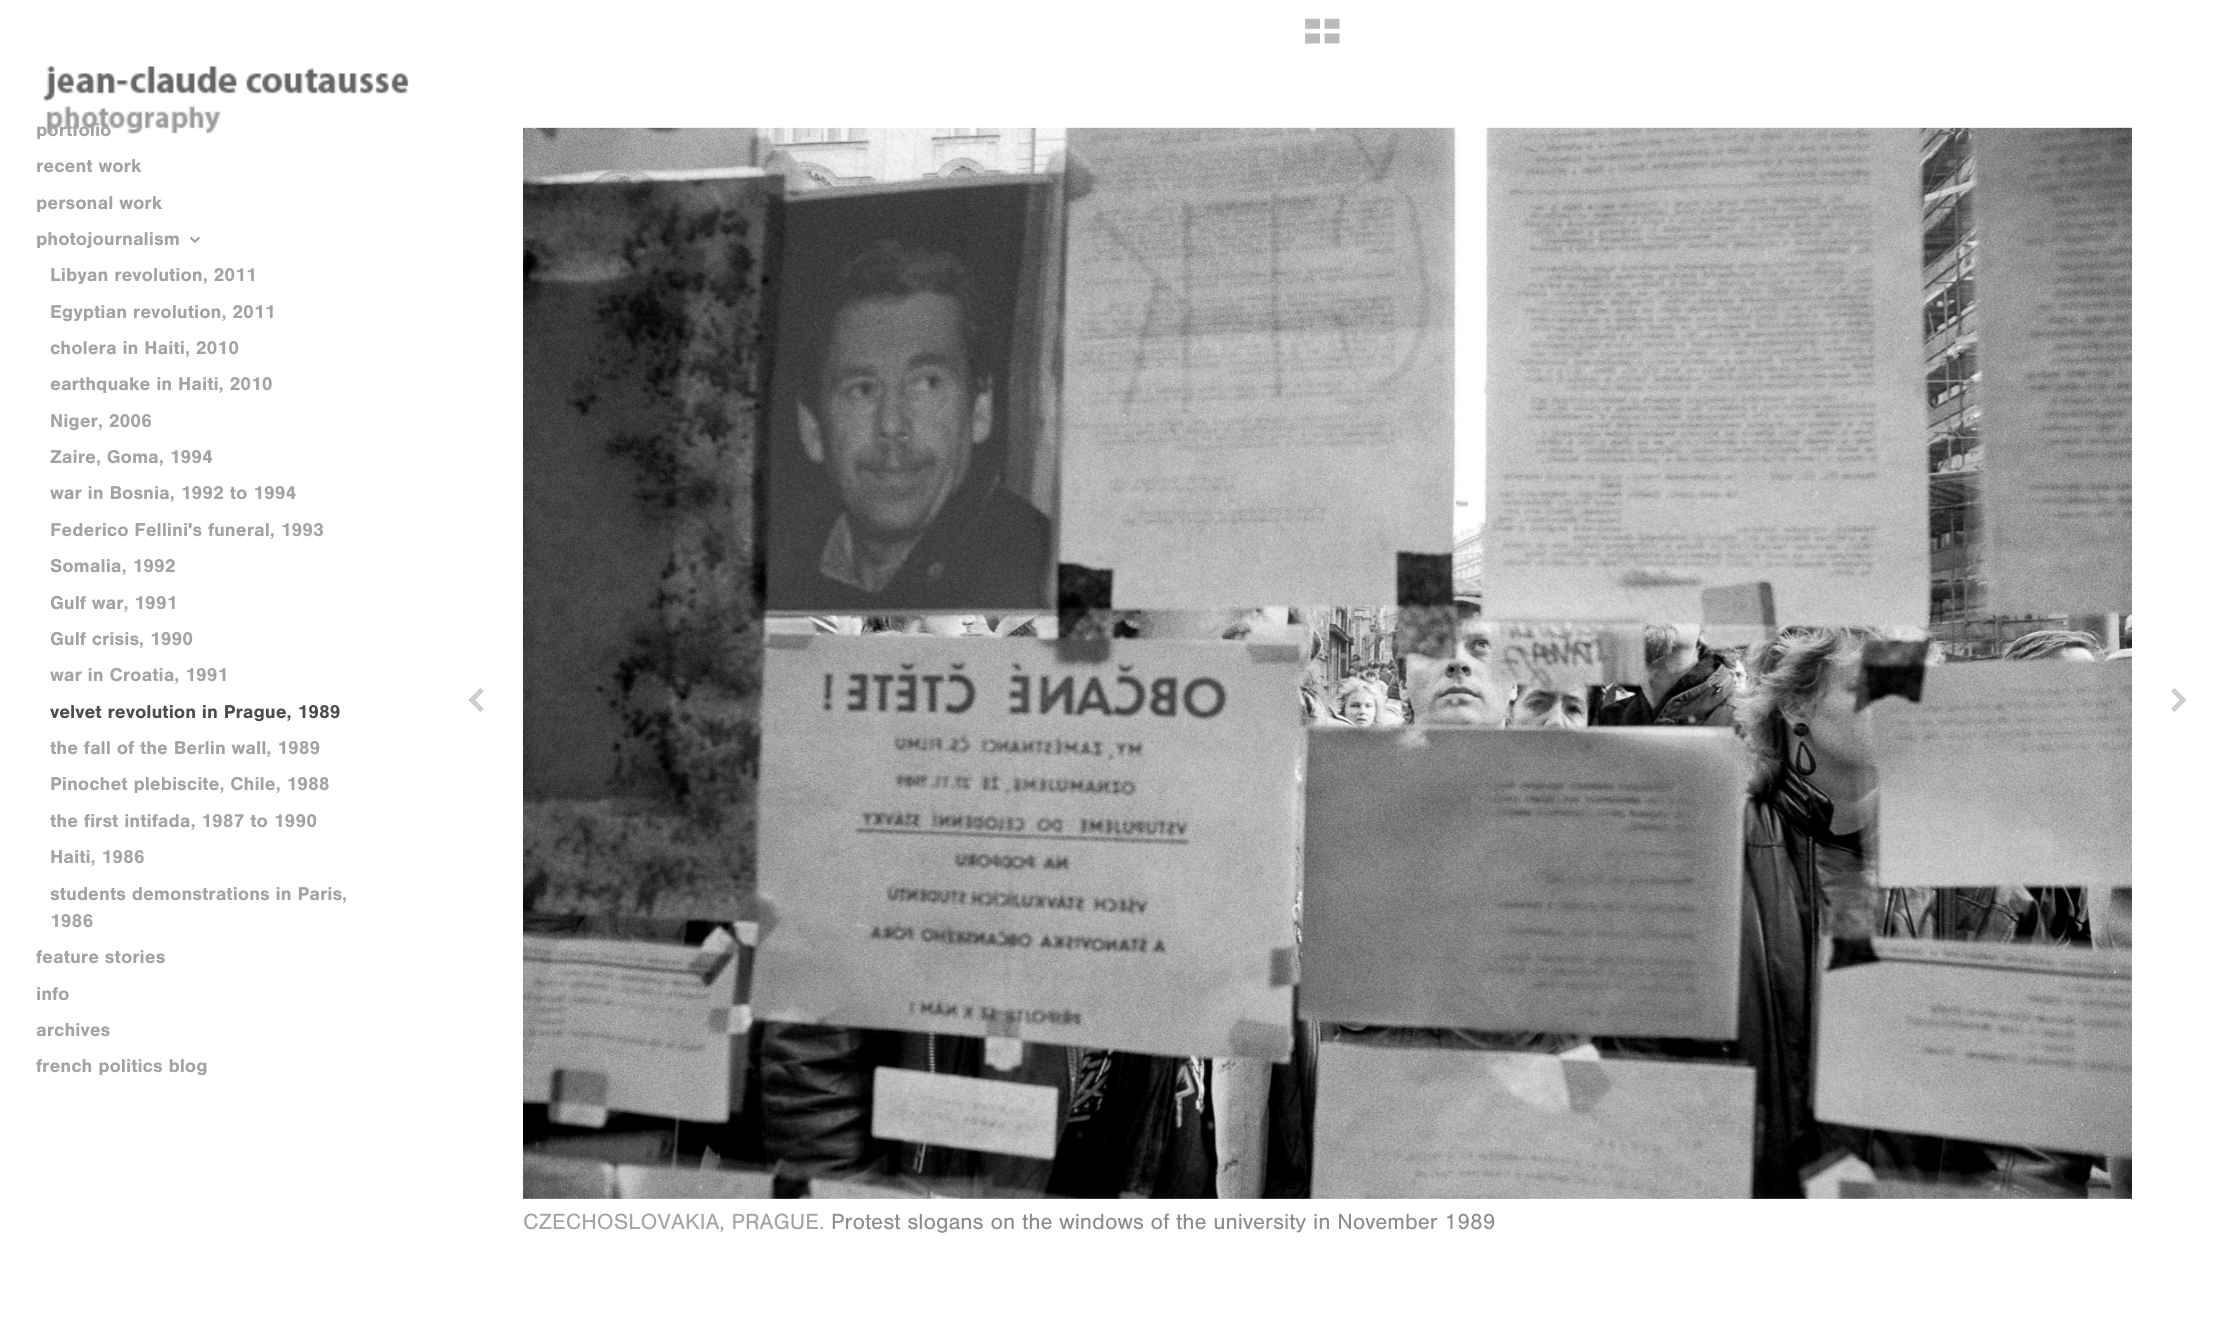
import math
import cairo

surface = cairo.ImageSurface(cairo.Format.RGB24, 2235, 1336)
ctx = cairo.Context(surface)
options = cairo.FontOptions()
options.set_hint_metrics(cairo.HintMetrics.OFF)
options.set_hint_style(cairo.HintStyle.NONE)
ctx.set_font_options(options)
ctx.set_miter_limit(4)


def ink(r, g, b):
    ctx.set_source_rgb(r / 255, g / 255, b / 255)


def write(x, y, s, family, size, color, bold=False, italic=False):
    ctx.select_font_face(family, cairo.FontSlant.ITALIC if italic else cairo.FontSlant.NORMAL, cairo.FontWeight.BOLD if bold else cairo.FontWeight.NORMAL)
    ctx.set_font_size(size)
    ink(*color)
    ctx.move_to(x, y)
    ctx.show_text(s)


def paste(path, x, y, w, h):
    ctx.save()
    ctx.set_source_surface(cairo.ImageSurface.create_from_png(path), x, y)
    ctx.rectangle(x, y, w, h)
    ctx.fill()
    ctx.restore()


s1 = dict(family="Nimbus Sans", size=19.3, color=(163, 163, 163), bold=True)
s2 = dict(family="Nimbus Sans", size=19.3, color=(76, 76, 76), bold=True)
s3 = dict(family="Nimbus Sans", size=22.75, color=(163, 163, 163))
s4 = dict(family="Nimbus Sans", size=22.75, color=(140, 140, 140))

ink(255, 255, 255)
ctx.paint()
paste("pic1.png", 1305, 18, 35, 26)
paste("pic2.png", 43, 66, 366, 68)
write(36, 136, "portfolio", **s1)
write(36, 172, "recent work", **s1)
write(36, 209, "personal work", **s1)
write(36, 245, "photojournalism", **s1)
paste("pic3.png", 190, 236, 10, 7)
write(50, 281, "Libyan revolution, 2011", **s1)
write(50, 318, "Egyptian revolution, 2011", **s1)
write(50, 354, "cholera in Haiti, 2010", **s1)
write(50, 390, "earthquake in Haiti, 2010", **s1)
write(50, 427, "Niger, 2006", **s1)
write(50, 463, "Zaire, Goma, 1994", **s1)
write(50, 499, "war in Bosnia, 1992 to 1994", **s1)
write(50, 536, "Federico Fellini's funeral, 1993", **s1)
write(50, 572, "Somalia, 1992", **s1)
write(50, 609, "Gulf war, 1991", **s1)
write(50, 645, "Gulf crisis, 1990", **s1)
write(50, 681, "war in Croatia, 1991", **s1)
write(50, 718, "velvet revolution in Prague, 1989", **s2)
write(50, 754, "the fall of the Berlin wall, 1989", **s1)
write(50, 790, "Pinochet plebiscite, Chile, 1988", **s1)
write(50, 827, "the first intifada, 1987 to 1990", **s1)
write(50, 863, "Haiti, 1986", **s1)
write(50, 900, "students demonstrations in Paris,", **s1)
write(50, 927, "1986", **s1)
write(36, 963, "feature stories", **s1)
write(36, 1000, "info", **s1)
write(36, 1036, "archives", **s1)
write(36, 1072, "french politics blog", **s1)
paste("pic4.png", 468, 688, 16, 24)
paste("pic5.png", 2171, 688, 15, 24)
paste("pic6.png", 523, 127, 1609, 1072)
write(523, 1229, "CZECHOSLOVAKIA, PRAGUE.", **s3)
write(831, 1229, "Protest slogans on the windows of the university in November 1989", **s4)
surface.write_to_png("screenshot.png")
